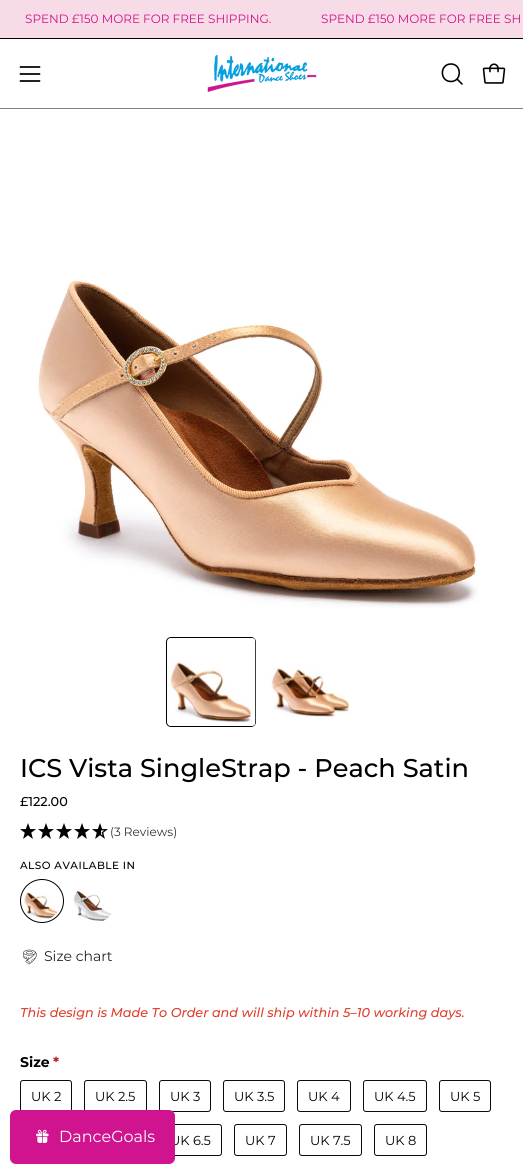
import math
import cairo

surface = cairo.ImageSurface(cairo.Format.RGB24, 523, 1174)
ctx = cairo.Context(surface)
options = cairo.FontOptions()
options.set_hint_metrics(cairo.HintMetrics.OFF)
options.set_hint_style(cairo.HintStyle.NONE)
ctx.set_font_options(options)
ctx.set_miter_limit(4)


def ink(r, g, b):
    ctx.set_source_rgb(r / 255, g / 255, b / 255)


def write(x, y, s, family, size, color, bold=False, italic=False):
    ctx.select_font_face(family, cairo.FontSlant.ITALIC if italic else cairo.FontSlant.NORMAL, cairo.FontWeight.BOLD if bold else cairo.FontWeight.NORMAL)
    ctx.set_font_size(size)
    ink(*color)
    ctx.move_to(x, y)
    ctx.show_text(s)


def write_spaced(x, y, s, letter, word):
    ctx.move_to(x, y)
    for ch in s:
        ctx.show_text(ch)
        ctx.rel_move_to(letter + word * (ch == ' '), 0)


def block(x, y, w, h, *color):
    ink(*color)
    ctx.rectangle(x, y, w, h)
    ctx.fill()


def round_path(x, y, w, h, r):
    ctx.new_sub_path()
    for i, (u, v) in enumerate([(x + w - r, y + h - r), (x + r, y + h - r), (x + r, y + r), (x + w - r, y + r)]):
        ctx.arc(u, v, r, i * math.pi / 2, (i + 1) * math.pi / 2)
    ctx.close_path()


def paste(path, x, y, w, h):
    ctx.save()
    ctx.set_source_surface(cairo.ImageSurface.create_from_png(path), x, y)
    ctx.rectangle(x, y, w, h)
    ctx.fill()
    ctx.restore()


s1 = dict(family="Montserrat", size=12, color=(207, 17, 139))
s2 = dict(family="Montserrat Medium", size=25.6, color=(0, 0, 0))
s3 = dict(family="Montserrat Medium", size=12.8, color=(0, 0, 0))
s4 = dict(family="Montserrat", size=12, color=(51, 51, 51))
s5 = dict(family="Montserrat", size=14, color=(35, 35, 35))
s6 = dict(family="Montserrat Medium", size=12.8, color=(224, 62, 45), italic=True)
s7 = dict(family="Montserrat", size=14, color=(0, 0, 0), bold=True)
s8 = dict(family="Montserrat", size=14, color=(178, 34, 34), bold=True)
s9 = dict(family="Montserrat", size=13, color=(0, 0, 0))
s10 = dict(family="Montserrat", size=16, color=(255, 255, 255))

ink(255, 255, 255)
ctx.paint()
block(0, 0, 523, 38, 247, 220, 231)
block(0, 38, 523, 1, 0, 0, 0)
write(25, 23, "SPEND £150 MORE FOR FREE SHIPPING.", **s1)
write(321, 23, "SPEND £150 MORE FOR FREE SH", **s1)
ctx.new_path()
ctx.move_to(20.5, 74)
ctx.line_to(39.5, 74)
ctx.move_to(20.5, 67)
ctx.line_to(39.5, 67)
ctx.move_to(20.5, 81)
ctx.line_to(39.5, 81)
ink(0, 0, 0)
ctx.set_line_width(1.8)
ctx.set_line_cap(cairo.LineCap.ROUND)
ctx.set_line_join(cairo.LineJoin.ROUND)
ctx.stroke()
paste("pic1.png", 207, 54, 110, 38)
ctx.new_path()
ctx.move_to(451, 81.5)
ctx.curve_to(462, 81.5, 462, 64, 451, 64)
ctx.curve_to(439.5, 64, 439.5, 81.5, 451, 81.5)
ctx.close_path()
ctx.move_to(457, 79)
ctx.line_to(462, 84)
ctx.set_line_width(1.6)
ctx.stroke()
paste("pic2.png", 482, 63, 24, 21)
block(0, 108, 523, 1, 128, 128, 128)
paste("pic3.png", 38, 278, 440, 330)
round_path(166.5, 637.5, 89, 89, 4.5)
ink(0, 0, 0)
ctx.set_line_width(1)
ctx.set_line_cap(cairo.LineCap.BUTT)
ctx.set_line_join(cairo.LineJoin.MITER)
ctx.stroke()
paste("pic4.png", 167, 638, 89, 88)
paste("pic5.png", 270, 667, 80, 50)
write(20, 777, "ICS Vista SingleStrap - Peach Satin", **s2)
write(20, 806, "£122.00", **s3)
paste("pic6.png", 20, 823, 16, 16)
paste("pic6.png", 38, 823, 16, 16)
paste("pic6.png", 56, 823, 16, 16)
paste("pic6.png", 74, 823, 16, 16)
paste("pic7.png", 92, 823, 16, 16)
write(110, 836, "(3 Reviews)", **s4)
ctx.select_font_face("Montserrat Medium")
ctx.set_font_size(10.4)
ink(0, 0, 0)
write_spaced(20, 869, "ALSO AVAILABLE IN", 0.5, 0)
paste("pic8.png", 24, 891, 34, 29)
ctx.arc(42, 901, 21.5, 0, 2 * math.pi)
ctx.stroke()
paste("pic9.png", 73, 891, 39, 31)
paste("pic10.png", 23, 949, 14, 16)
write(44, 961, "Size chart", **s5)
write(20, 1017, "This design is Made To Order and will ship within 5–10 working days.", **s6)
write(20, 1067, "Size", **s7)
write(53, 1067, "*", **s8)
round_path(20.5, 1080.5, 51, 31, 2.5)
ink(11, 11, 11)
ctx.stroke()
write(31, 1101, "UK 2", **s9)
round_path(84.5, 1080.5, 62, 31, 2.5)
ink(11, 11, 11)
ctx.stroke()
write(95, 1101, "UK 2.5", **s9)
round_path(159.5, 1080.5, 51, 31, 2.5)
ink(11, 11, 11)
ctx.stroke()
write(170, 1101, "UK 3", **s9)
round_path(223.5, 1080.5, 61, 31, 2.5)
ink(11, 11, 11)
ctx.stroke()
write(234, 1101, "UK 3.5", **s9)
round_path(297.5, 1080.5, 53, 31, 2.5)
ink(11, 11, 11)
ctx.stroke()
write(308, 1101, "UK 4", **s9)
round_path(363.5, 1080.5, 63, 31, 2.5)
ink(11, 11, 11)
ctx.stroke()
write(374, 1101, "UK 4.5", **s9)
round_path(439.5, 1080.5, 51, 31, 2.5)
ink(11, 11, 11)
ctx.stroke()
write(450, 1101, "UK 5", **s9)
round_path(159.5, 1124.5, 62, 31, 2.5)
ink(11, 11, 11)
ctx.stroke()
write(170, 1145, "UK 6.5", **s9)
round_path(234.5, 1124.5, 52, 31, 2.5)
ink(11, 11, 11)
ctx.stroke()
write(245, 1145, "UK 7", **s9)
round_path(299.5, 1124.5, 62, 31, 2.5)
ink(11, 11, 11)
ctx.stroke()
write(310, 1145, "UK 7.5", **s9)
round_path(374.5, 1124.5, 52, 31, 2.5)
ink(11, 11, 11)
ctx.stroke()
write(385, 1145, "UK 8", **s9)
ink(208, 19, 142)
round_path(10, 1110, 165, 54, 6)
ctx.fill()
paste("pic11.png", 36, 1129, 13, 14)
write(59, 1142, "DanceGoals", **s10)
surface.write_to_png("screenshot.png")
